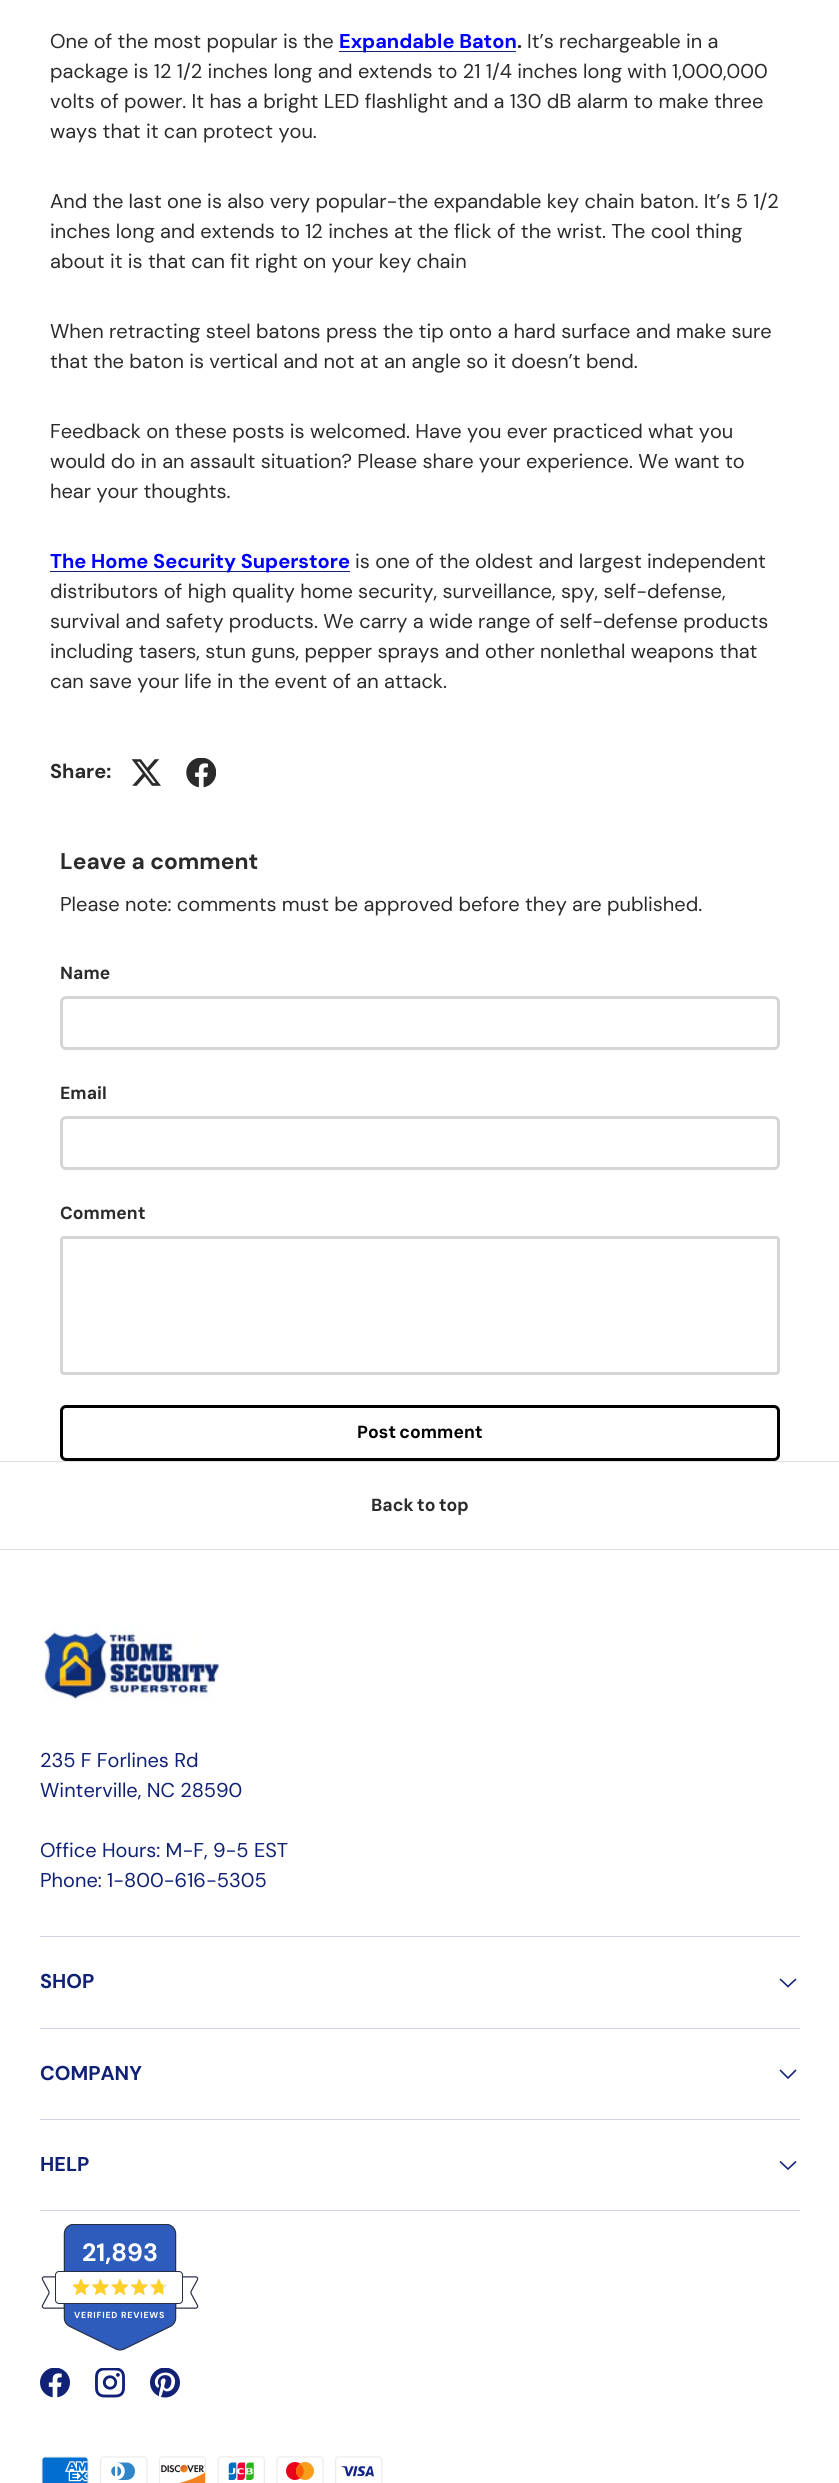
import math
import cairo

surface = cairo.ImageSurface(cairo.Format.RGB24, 839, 2483)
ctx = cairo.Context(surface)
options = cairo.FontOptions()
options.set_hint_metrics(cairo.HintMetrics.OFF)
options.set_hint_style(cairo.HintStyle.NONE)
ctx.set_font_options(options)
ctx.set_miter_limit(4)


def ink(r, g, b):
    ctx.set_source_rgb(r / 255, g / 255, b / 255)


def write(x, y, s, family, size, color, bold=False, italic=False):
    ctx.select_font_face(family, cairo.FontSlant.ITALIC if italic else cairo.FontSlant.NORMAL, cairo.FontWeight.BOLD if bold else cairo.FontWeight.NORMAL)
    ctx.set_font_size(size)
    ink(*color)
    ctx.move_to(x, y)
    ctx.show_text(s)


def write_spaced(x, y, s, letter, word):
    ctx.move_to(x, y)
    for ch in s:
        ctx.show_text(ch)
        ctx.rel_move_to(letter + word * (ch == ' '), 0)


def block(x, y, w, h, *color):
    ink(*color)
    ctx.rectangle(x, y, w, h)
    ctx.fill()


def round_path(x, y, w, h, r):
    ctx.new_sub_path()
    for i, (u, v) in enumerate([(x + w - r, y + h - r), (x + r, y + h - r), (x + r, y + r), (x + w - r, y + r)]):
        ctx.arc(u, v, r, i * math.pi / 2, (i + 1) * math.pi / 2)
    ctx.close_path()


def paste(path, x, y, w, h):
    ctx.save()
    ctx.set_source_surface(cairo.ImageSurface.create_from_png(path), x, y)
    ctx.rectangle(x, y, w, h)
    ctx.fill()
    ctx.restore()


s1 = dict(family="DM Sans", size=20, color=(42, 43, 42))
s2 = dict(family="DM Sans", size=20, color=(0, 0, 255), bold=True)
s3 = dict(family="DM Sans", size=20, color=(42, 43, 42), bold=True)
s4 = dict(family="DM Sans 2", size=22.75, color=(42, 43, 42), bold=True)
s5 = dict(family="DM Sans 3", size=17.5, color=(42, 43, 42), bold=True)
s6 = dict(family="DM Sans", size=20, color=(17, 34, 118))
s7 = dict(family="DM Sans", size=20, color=(17, 34, 118), bold=True)
s8 = dict(family="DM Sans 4", size=25, color=(255, 255, 255), bold=True)

ink(255, 255, 255)
ctx.paint()
write(50, 48, "One of the most popular is the", **s1)
block(339, 51, 177, 1, 17, 34, 118)
write(339, 48, "Expandable Baton", **s2)
write(517, 48, ".", **s3)
write(527, 48, "It’s rechargeable in a", **s1)
write(50, 78, "package is 12 1/2 inches long and extends to 21 1/4 inches long with 1,000,000", **s1)
write(50, 108, "volts of power. It has a bright LED flashlight and a 130 dB alarm to make three", **s1)
write(50, 138, "ways that it can protect you.", **s1)
write(50, 208, "And the last one is also very popular-the expandable key chain baton. It’s 5 1/2", **s1)
write(50, 238, "inches long and extends to 12 inches at the flick of the wrist. The cool thing", **s1)
write(50, 268, "about it is that can fit right on your key chain", **s1)
write(50, 338, "When retracting steel batons press the tip onto a hard surface and make sure", **s1)
write(50, 368, "that the baton is vertical and not at an angle so it doesn’t bend.", **s1)
write(50, 438, "Feedback on these posts is welcomed. Have you ever practiced what you", **s1)
write(50, 468, "would do in an assault situation? Please share your experience. We want to", **s1)
write(50, 498, "hear your thoughts.", **s1)
block(50, 571, 300, 1, 17, 34, 118)
write(50, 568, "The Home Security Superstore", **s2)
write(355, 568, "is one of the oldest and largest independent", **s1)
write(50, 598, "distributors of high quality home security, surveillance, spy, self-defense,", **s1)
write(50, 628, "survival and safety products. We carry a wide range of self-defense products", **s1)
write(50, 658, "including tasers, stun guns, pepper sprays and other nonlethal weapons that", **s1)
write(50, 688, "can save your life in the event of an attack.", **s1)
write(50, 778, "Share:", **s3)
paste("pic1.png", 131, 759, 30, 27)
paste("pic2.png", 186, 758, 30, 30)
write(60, 869, "Leave a comment", **s4)
write(60, 911, "Please note: comments must be approved before they are published.", **s1)
write(60, 979, "Name", **s5)
round_path(61.5, 997.5, 717, 51, 4.5)
ink(212, 213, 212)
ctx.set_line_width(3)
ctx.stroke()
write(60, 1099, "Email", **s5)
round_path(61.5, 1117.5, 717, 51, 4.5)
ink(212, 213, 212)
ctx.stroke()
write(60, 1219, "Comment", **s5)
round_path(61.5, 1237.5, 717, 136, 2.5)
ink(212, 213, 212)
ctx.stroke()
round_path(61.5, 1406.5, 717, 53, 4.5)
ink(0, 0, 0)
ctx.stroke()
write_spaced(357, 1438, "Post comment", 0, -1)
block(0, 1461, 839, 1, 223, 223, 223)
block(0, 1549, 839, 1, 223, 223, 223)
ink(42, 43, 42)
write_spaced(371, 1511, "Back to top", 0, -1)
paste("pic3.png", 40, 1625, 180, 76)
write(40, 1767, "235 F Forlines Rd", **s6)
write(40, 1797, "Winterville, NC 28590", **s6)
write(40, 1857, "Office Hours: M-F, 9-5 EST", **s6)
write(40, 1887, "Phone: 1-800-616-5305", **s6)
block(40, 1936, 760, 1, 207, 211, 228)
block(40, 2028, 760, 1, 207, 211, 228)
write(40, 1988, "SHOP", **s7)
ctx.new_path()
ctx.move_to(796, 1979)
ctx.line_to(788, 1986.5)
ctx.line_to(780, 1979)
ctx.set_line_width(1.6)
ctx.stroke()
block(40, 2119, 760, 1, 207, 211, 228)
write(40, 2080, "COMPANY", **s7)
ctx.new_path()
ctx.move_to(796, 2070)
ctx.line_to(788, 2078)
ctx.line_to(780, 2070)
ctx.stroke()
block(40, 2210, 760, 1, 207, 211, 228)
write(40, 2171, "HELP", **s7)
ctx.new_path()
ctx.move_to(796, 2161.5)
ctx.line_to(788, 2169)
ctx.line_to(780, 2161.5)
ctx.stroke()
paste("pic4.png", 41, 2224, 158, 127)
write(82, 2261, "21,893", **s8)
paste("pic5.png", 72, 2279, 95, 16)
paste("pic6.png", 73, 2279, 90, 16)
ctx.select_font_face("DM Sans 3", cairo.FontSlant.NORMAL, cairo.FontWeight.BOLD)
ctx.set_font_size(8.75)
write_spaced(74, 2318, "VERIFIED REVIEWS", 0.75, 0)
paste("pic7.png", 40, 2368, 30, 30)
paste("pic8.png", 95, 2368, 30, 30)
paste("pic9.png", 150, 2368, 30, 30)
paste("pic10.png", 41, 2456, 48, 27)
paste("pic11.png", 100, 2456, 48, 27)
paste("pic12.png", 159, 2456, 47, 27)
paste("pic13.png", 217, 2456, 48, 27)
paste("pic14.png", 276, 2456, 48, 27)
paste("pic15.png", 335, 2456, 48, 27)
surface.write_to_png("screenshot.png")
